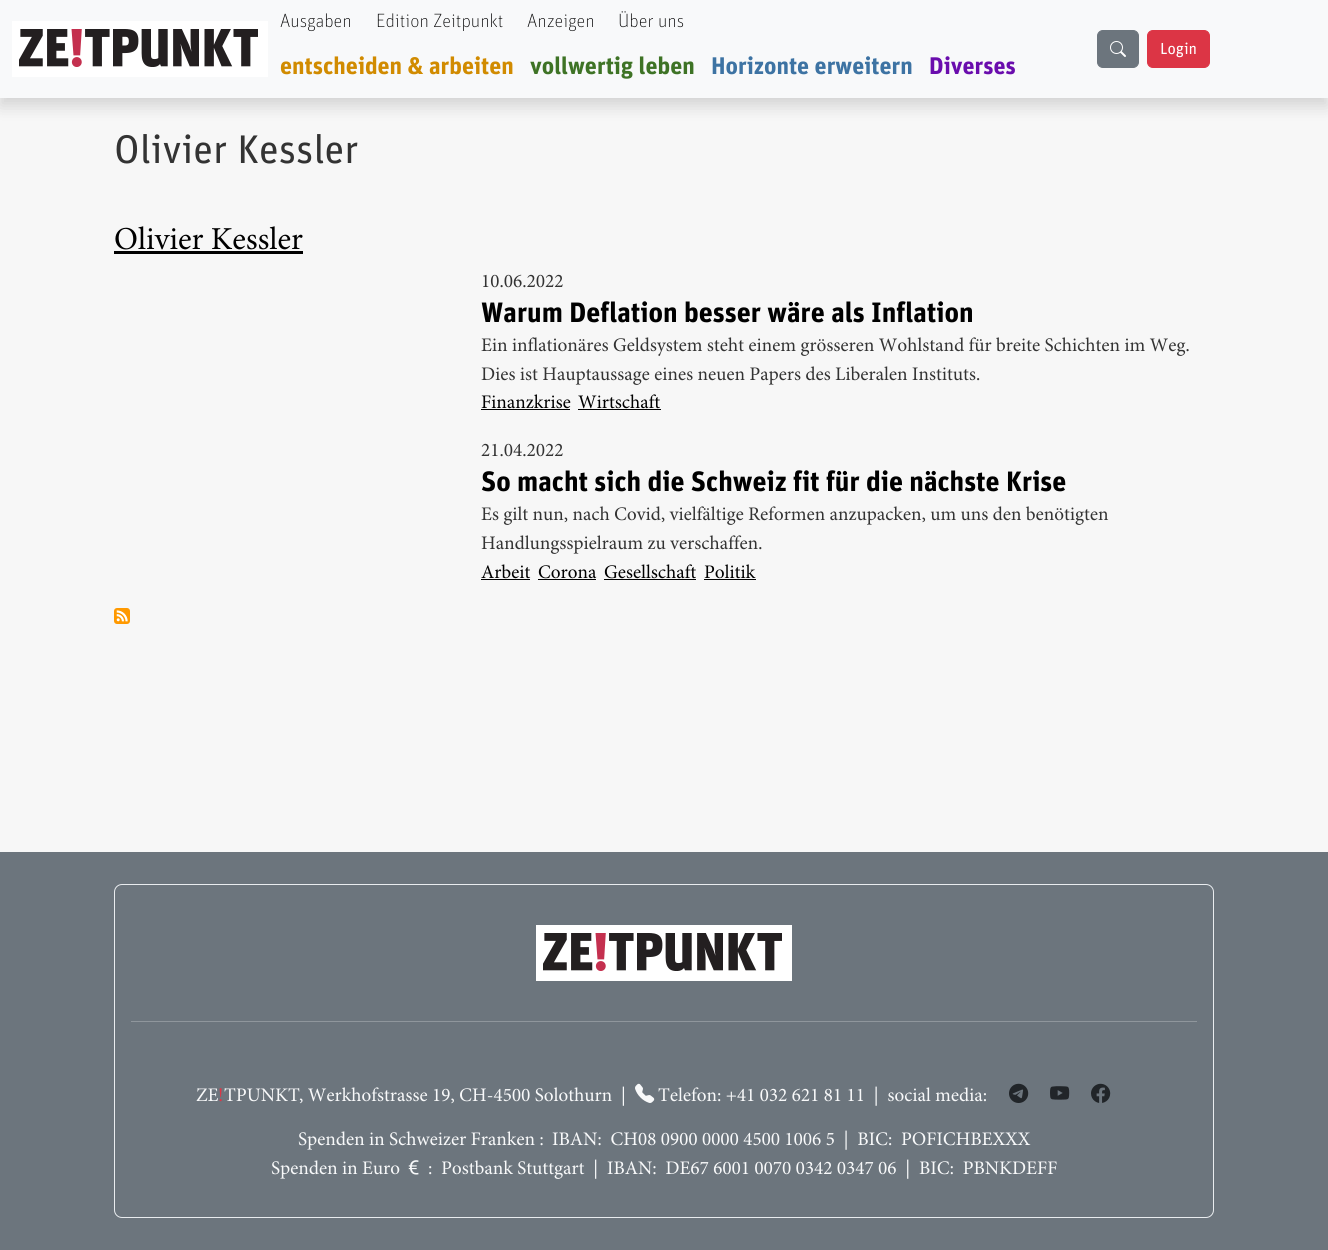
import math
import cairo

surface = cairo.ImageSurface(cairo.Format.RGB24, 1328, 1250)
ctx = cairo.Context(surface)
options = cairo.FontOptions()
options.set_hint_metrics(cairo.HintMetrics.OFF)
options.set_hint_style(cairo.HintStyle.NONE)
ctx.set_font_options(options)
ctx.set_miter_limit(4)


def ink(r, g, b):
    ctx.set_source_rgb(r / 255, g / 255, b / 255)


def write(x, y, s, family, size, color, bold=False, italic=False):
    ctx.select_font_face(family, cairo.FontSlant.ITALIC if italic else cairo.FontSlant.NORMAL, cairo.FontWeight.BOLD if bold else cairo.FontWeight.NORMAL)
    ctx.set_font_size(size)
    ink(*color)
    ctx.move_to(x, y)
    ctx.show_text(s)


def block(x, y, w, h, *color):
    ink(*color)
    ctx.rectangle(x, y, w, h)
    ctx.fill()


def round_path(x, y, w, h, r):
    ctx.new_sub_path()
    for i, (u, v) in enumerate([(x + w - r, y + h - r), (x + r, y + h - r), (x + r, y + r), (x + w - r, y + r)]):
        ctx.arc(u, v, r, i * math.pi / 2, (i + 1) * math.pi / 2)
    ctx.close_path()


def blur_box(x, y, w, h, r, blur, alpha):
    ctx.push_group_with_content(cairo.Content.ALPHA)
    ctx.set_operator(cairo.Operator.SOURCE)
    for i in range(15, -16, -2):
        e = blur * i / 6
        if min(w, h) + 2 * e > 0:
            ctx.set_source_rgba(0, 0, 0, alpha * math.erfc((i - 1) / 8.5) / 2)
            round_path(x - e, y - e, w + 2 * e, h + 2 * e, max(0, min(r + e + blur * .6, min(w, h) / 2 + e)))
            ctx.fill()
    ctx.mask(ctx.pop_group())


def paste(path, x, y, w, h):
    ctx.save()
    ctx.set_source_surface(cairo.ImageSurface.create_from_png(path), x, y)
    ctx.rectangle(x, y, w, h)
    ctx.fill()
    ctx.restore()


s1 = dict(family="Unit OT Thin", size=19.25, color=(0, 0, 0))
s2 = dict(family="Unit OT", size=24, color=(209, 139, 0), bold=True)
s3 = dict(family="Unit OT", size=24, color=(62, 115, 37), bold=True)
s4 = dict(family="Unit OT", size=24, color=(61, 115, 163), bold=True)
s5 = dict(family="Unit OT", size=24, color=(106, 13, 173), bold=True)
s6 = dict(family="Unit OT", size=16, color=(255, 255, 255))
s7 = dict(family="Unit OT", size=40, color=(51, 51, 51))
s8 = dict(family="Unit OT", size=28, color=(0, 0, 0), bold=True)

ink(247, 247, 247)
ctx.paint()
ink(0, 0, 0)
blur_box(0, 8, 1328, 98, 0, 8, 0.15)
block(0, 0, 1328, 98, 248, 249, 250)
paste("pic1.png", 12, 21, 256, 56)
write(280, 27, "Ausgaben", **s1)
write(376, 27, "Edition Zeitpunkt", **s1)
write(527, 27, "Anzeigen", **s1)
write(618, 27, "Über uns", **s1)
write(280, 74, "entscheiden & arbeiten", **s2)
write(530, 74, "vollwertig leben", **s3)
write(711, 74, "Horizonte erweitern", **s4)
write(929, 74, "Diverses", **s5)
ink(108, 117, 125)
round_path(1097.5, 30.5, 41, 37, 5.5)
ctx.fill_preserve()
ctx.set_line_width(1)
ctx.stroke()
paste("pic2.png", 1110, 41, 16, 16)
ink(220, 53, 69)
round_path(1147.5, 30.5, 62, 37, 5.5)
ctx.fill_preserve()
ctx.stroke()
write(1160, 54, "Login", **s6)
write(114, 163, "Olivier Kessler", **s7)
paste("pic3.png", 115, 226, 188, 24)
block(114, 251, 189, 3, 0, 0, 0)
paste("pic4.png", 483, 274, 80, 14)
write(481, 322, "Warum Deflation besser wäre als Inflation", **s8)
paste("pic5.png", 481, 337, 708, 19)
paste("pic6.png", 481, 366, 499, 19)
paste("pic7.png", 481, 394, 90, 15)
block(481, 409, 89, 1, 0, 0, 0)
paste("pic8.png", 578, 394, 82, 15)
block(578, 409, 83, 1, 0, 0, 0)
paste("pic9.png", 481, 443, 82, 14)
write(481, 491, "So macht sich die Schweiz fit für die nächste Krise", **s8)
paste("pic10.png", 481, 506, 628, 19)
paste("pic11.png", 481, 535, 281, 19)
paste("pic12.png", 481, 564, 50, 15)
block(481, 579, 49, 1, 0, 0, 0)
paste("pic13.png", 538, 565, 59, 14)
block(538, 579, 58, 1, 0, 0, 0)
paste("pic14.png", 604, 564, 92, 15)
block(604, 579, 92, 1, 0, 0, 0)
paste("pic15.png", 704, 564, 52, 15)
block(704, 579, 52, 1, 0, 0, 0)
paste("pic16.png", 114, 608, 16, 16)
block(0, 852, 1328, 398, 108, 117, 125)
round_path(114.5, 884.5, 1099, 333, 7.5)
ink(233, 236, 239)
ctx.stroke()
paste("pic1.png", 536, 925, 256, 56)
block(131, 1021, 1066, 1, 143, 150, 156)
paste("pic17.png", 196, 1088, 22, 13)
paste("pic18.png", 219, 1088, 3, 14)
paste("pic19.png", 224, 1088, 76, 14)
paste("pic20.png", 299, 1086, 325, 20)
paste("pic21.png", 635, 1083, 20, 20)
paste("pic22.png", 658, 1086, 328, 20)
paste("pic23.png", 1009, 1083, 20, 20)
paste("pic24.png", 1050, 1086, 20, 14)
paste("pic25.png", 1091, 1083, 20, 20)
paste("pic26.png", 298, 1131, 245, 19)
paste("pic27.png", 552, 1130, 479, 20)
paste("pic28.png", 271, 1160, 129, 19)
paste("pic29.png", 408, 1160, 11, 15)
paste("pic30.png", 429, 1159, 628, 20)
surface.write_to_png("screenshot.png")
